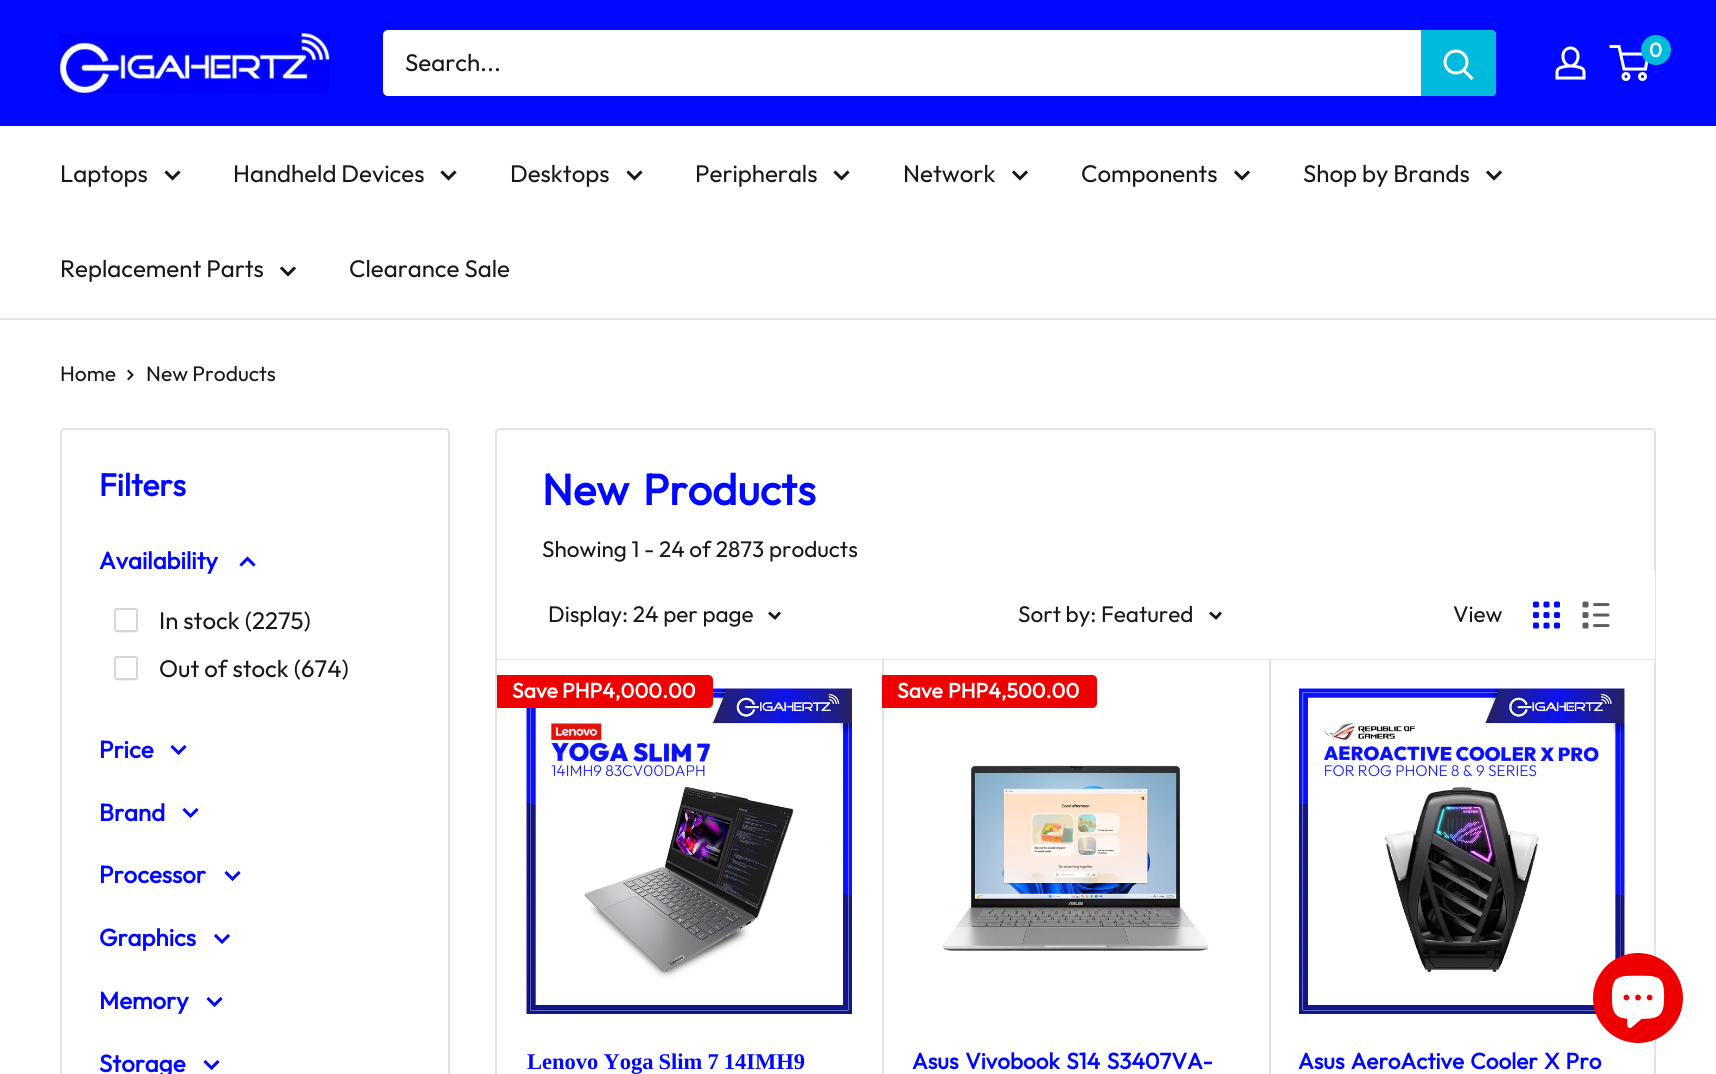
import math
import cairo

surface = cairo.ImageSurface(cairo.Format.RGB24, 1716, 1074)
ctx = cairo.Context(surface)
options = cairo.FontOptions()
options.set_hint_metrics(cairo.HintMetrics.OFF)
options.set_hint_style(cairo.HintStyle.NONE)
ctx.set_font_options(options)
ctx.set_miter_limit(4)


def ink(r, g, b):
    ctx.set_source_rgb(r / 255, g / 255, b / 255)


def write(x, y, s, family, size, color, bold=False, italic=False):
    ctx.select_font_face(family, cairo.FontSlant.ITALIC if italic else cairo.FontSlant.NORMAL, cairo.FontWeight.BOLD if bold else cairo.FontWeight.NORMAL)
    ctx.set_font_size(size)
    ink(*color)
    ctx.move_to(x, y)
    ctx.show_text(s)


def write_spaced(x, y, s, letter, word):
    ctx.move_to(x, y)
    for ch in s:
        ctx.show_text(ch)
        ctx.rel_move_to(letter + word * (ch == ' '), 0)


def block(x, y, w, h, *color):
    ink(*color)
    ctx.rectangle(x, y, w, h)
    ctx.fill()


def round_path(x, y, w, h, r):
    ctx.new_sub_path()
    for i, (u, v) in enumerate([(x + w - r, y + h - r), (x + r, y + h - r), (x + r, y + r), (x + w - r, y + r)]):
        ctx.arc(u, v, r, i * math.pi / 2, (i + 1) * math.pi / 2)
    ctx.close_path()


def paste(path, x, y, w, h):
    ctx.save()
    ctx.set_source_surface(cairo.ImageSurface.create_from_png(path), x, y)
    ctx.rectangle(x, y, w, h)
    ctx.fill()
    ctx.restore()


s1 = dict(family="Outfit", size=20, color=(255, 255, 255), bold=True)
s2 = dict(family="Outfit", size=24, color=(22, 25, 27))
s3 = dict(family="Outfit", size=21, color=(22, 25, 27))
s4 = dict(family="Outfit", size=31.5, color=(0, 8, 255), bold=True)
s5 = dict(family="Outfit", size=24, color=(0, 8, 255), bold=True)
s6 = dict(family="Outfit", size=22.5, color=(22, 25, 27))
s7 = dict(family="Outfit", size=21, color=(255, 255, 255), bold=True)

ink(255, 255, 255)
ctx.paint()
block(0, 0, 1716, 126, 0, 8, 255)
paste("pic1.png", 60, 33, 270, 60)
paste("pic2.png", 1555, 46, 31, 34)
ctx.arc(1626, 76.5, 3, 0, 2 * math.pi)
ink(255, 255, 255)
ctx.set_line_width(3)
ctx.stroke()
ctx.arc(1642.5, 76.5, 3, 0, 2 * math.pi)
ctx.stroke()
ctx.new_path()
ctx.move_to(1620.5, 54)
ctx.line_to(1648, 54)
ctx.line_to(1645.5, 69)
ctx.line_to(1624, 69)
ctx.line_to(1619, 46.5)
ctx.line_to(1609.5, 46.5)
ctx.stroke()
ink(0, 186, 219)
ctx.arc(1656, 50, 15, 0, 2 * math.pi)
ctx.fill()
write(1649, 57, "0", **s1)
round_path(383, 30, 1113, 66, 5)
ctx.fill()
write(405, 71, "Search...", **s2)
ink(0, 186, 219)
ctx.new_path()
ctx.move_to(1421, 30)
ctx.line_to(1491, 30)
ctx.curve_to(1494, 30, 1496, 32, 1496, 35)
ctx.line_to(1496, 91)
ctx.curve_to(1496, 94, 1494, 96, 1491, 96)
ctx.line_to(1421, 96)
ctx.close_path()
ctx.fill()
ctx.new_path()
ctx.move_to(1471.5, 78)
ctx.line_to(1464, 70.5)
ink(255, 255, 255)
ctx.set_line_cap(cairo.LineCap.SQUARE)
ctx.stroke()
ctx.arc(1456, 62, 11, 0, 2 * math.pi)
ctx.set_line_cap(cairo.LineCap.BUTT)
ctx.stroke()
block(0, 318, 1716, 2, 225, 227, 228)
write(60, 182, "Laptops", **s2)
ctx.new_path()
ctx.move_to(178.5, 172.5)
ctx.line_to(172.5, 178.5)
ctx.line_to(166.5, 172.5)
ctx.set_line_cap(cairo.LineCap.SQUARE)
ctx.stroke()
write(233, 182, "Handheld Devices", **s2)
ctx.new_path()
ctx.move_to(454.5, 172.5)
ctx.line_to(448.5, 178.5)
ctx.line_to(442.5, 172.5)
ctx.stroke()
write(510, 182, "Desktops", **s2)
ctx.new_path()
ctx.move_to(640.5, 172.5)
ctx.line_to(634.5, 178.5)
ctx.line_to(628.5, 172.5)
ctx.stroke()
write(695, 182, "Peripherals", **s2)
ctx.new_path()
ctx.move_to(847.5, 172.5)
ctx.line_to(841.5, 178.5)
ctx.line_to(835.5, 172.5)
ctx.stroke()
write(903, 182, "Network", **s2)
ctx.new_path()
ctx.move_to(1026, 172.5)
ctx.line_to(1020, 178.5)
ctx.line_to(1014, 172.5)
ctx.stroke()
write(1081, 182, "Components", **s2)
ctx.new_path()
ctx.move_to(1248, 172.5)
ctx.line_to(1242, 178.5)
ctx.line_to(1236, 172.5)
ctx.stroke()
write(1303, 182, "Shop by Brands", **s2)
ctx.new_path()
ctx.move_to(1500, 172.5)
ctx.line_to(1494, 178.5)
ctx.line_to(1488, 172.5)
ctx.stroke()
write(60, 277, "Replacement Parts", **s2)
ctx.new_path()
ctx.move_to(294, 268.5)
ctx.line_to(288, 274.5)
ctx.line_to(282, 268.5)
ctx.stroke()
write(349, 277, "Clearance Sale", **s2)
write(60, 381, "Home", **s3)
ctx.new_path()
ctx.move_to(128.5, 371)
ctx.line_to(132.5, 375)
ctx.line_to(128.5, 379)
ctx.set_line_width(2)
ctx.stroke()
write(146, 381, "New Products", **s3)
round_path(61, 429, 388, 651, 4)
ink(225, 227, 228)
ctx.set_line_cap(cairo.LineCap.BUTT)
ctx.stroke()
write(99, 496, "Filters", **s4)
write(99, 569, "Availability", **s5)
ctx.new_path()
ctx.move_to(241.5, 564.5)
ctx.line_to(247.5, 558.5)
ctx.line_to(253.5, 564.5)
ctx.set_line_width(3)
ctx.set_line_cap(cairo.LineCap.SQUARE)
ctx.stroke()
ink(243, 244, 244)
ctx.new_path()
ctx.move_to(114, 628.5)
ctx.curve_to(114, 633, 115.5, 633, 120, 633)
ctx.line_to(132, 633)
ctx.curve_to(136.5, 633, 138, 633, 138, 628.5)
ctx.curve_to(138, 630, 136.5, 631.5, 135, 631.5)
ctx.line_to(117, 631.5)
ctx.curve_to(115.5, 631.5, 114, 630, 114, 628.5)
ctx.close_path()
ctx.fill()
ink(255, 255, 255)
round_path(115, 609, 22, 22, 2)
ctx.fill_preserve()
ink(212, 214, 216)
ctx.set_line_width(2)
ctx.set_line_cap(cairo.LineCap.BUTT)
ctx.stroke()
write(159, 629, "In stock (2275)", **s2)
ink(243, 244, 244)
ctx.new_path()
ctx.move_to(114, 676.5)
ctx.curve_to(114, 681, 115.5, 681, 120, 681)
ctx.line_to(132, 681)
ctx.curve_to(136.5, 681, 138, 681, 138, 676.5)
ctx.curve_to(138, 678, 136.5, 679.5, 135, 679.5)
ctx.line_to(117, 679.5)
ctx.curve_to(115.5, 679.5, 114, 678, 114, 676.5)
ctx.close_path()
ctx.fill()
ink(255, 255, 255)
round_path(115, 657, 22, 22, 2)
ctx.fill_preserve()
ink(212, 214, 216)
ctx.stroke()
write(159, 677, "Out of stock (674)", **s2)
write(99, 758, "Price", **s5)
ctx.new_path()
ctx.move_to(184.5, 747)
ctx.line_to(178.5, 753)
ctx.line_to(172.5, 747)
ctx.set_line_width(3)
ctx.set_line_cap(cairo.LineCap.SQUARE)
ctx.stroke()
write(99, 821, "Brand", **s5)
ctx.new_path()
ctx.move_to(196.5, 810)
ctx.line_to(190.5, 816)
ctx.line_to(184.5, 810)
ctx.stroke()
write(99, 883, "Processor", **s5)
ctx.new_path()
ctx.move_to(238.5, 873)
ctx.line_to(232.5, 879)
ctx.line_to(226.5, 873)
ctx.stroke()
write(99, 946, "Graphics", **s5)
ctx.new_path()
ctx.move_to(228, 936)
ctx.line_to(222, 942)
ctx.line_to(216, 936)
ctx.stroke()
write(99, 1009, "Memory", **s5)
ctx.new_path()
ctx.move_to(220.5, 999)
ctx.line_to(214.5, 1005)
ctx.line_to(208.5, 999)
ctx.stroke()
write(99, 1072, "Storage", **s5)
ctx.new_path()
ctx.move_to(217.5, 1062)
ctx.line_to(211.5, 1068)
ctx.line_to(205.5, 1062)
ctx.stroke()
round_path(496, 429, 1159, 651, 4)
ink(225, 227, 228)
ctx.set_line_width(2)
ctx.set_line_cap(cairo.LineCap.BUTT)
ctx.stroke()
ctx.set_font_size(43.5)
ink(0, 8, 255)
write_spaced(542, 505, "New Products", 0, 5)
write(542, 557, "Showing 1 - 24 of 2873 products", **s6)
ink(255, 255, 255)
round_path(497, 659, 1158, 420, 5)
ctx.fill()
block(882, 659, 2, 415, 225, 227, 228)
ink(255, 255, 255)
ctx.new_path()
ctx.move_to(1269, 659)
ctx.line_to(1650, 659)
ctx.curve_to(1653, 659, 1655, 661, 1655, 664)
ctx.line_to(1655, 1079)
ctx.line_to(1269, 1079)
ctx.close_path()
ctx.fill()
block(1269, 659, 2, 415, 225, 227, 228)
ctx.new_path()
ctx.move_to(497, 658)
ctx.line_to(497, 660)
ctx.line_to(1655, 660)
ctx.line_to(1655, 573)
ctx.line_to(1654, 573)
ctx.line_to(1654, 658)
ctx.close_path()
ctx.fill()
block(497, 572, 1158, 87, 255, 255, 255)
write(548, 622, "Display: 24 per page", **s6)
ctx.new_path()
ctx.move_to(779, 613.5)
ctx.line_to(775, 618)
ctx.line_to(770, 613.5)
ctx.set_line_width(2.8)
ctx.set_line_cap(cairo.LineCap.SQUARE)
ctx.stroke()
write(1018, 622, "Sort by: Featured", **s6)
ctx.new_path()
ctx.move_to(1220, 613.5)
ctx.line_to(1216, 618)
ctx.line_to(1211, 613.5)
ctx.stroke()
write(1453, 622, "View", **s6)
paste("pic3.png", 1533, 601, 27, 28)
paste("pic4.png", 1582, 601, 28, 28)
paste("pic5.png", 526, 688, 326, 326)
ink(238, 0, 0)
ctx.new_path()
ctx.move_to(497, 675)
ctx.line_to(708, 675)
ctx.curve_to(711, 675, 713, 677, 713, 680)
ctx.line_to(713, 703)
ctx.curve_to(713, 706, 711, 708, 708, 708)
ctx.line_to(497, 708)
ctx.close_path()
ctx.fill()
write(512, 698, "Save", **s7)
write(562, 698, "PHP4,000.00", **s7)
ctx.select_font_face("Liberation Serif", cairo.FontSlant.NORMAL, cairo.FontWeight.BOLD)
ctx.set_font_size(22.5)
ink(0, 8, 255)
write_spaced(527, 1069, "Lenovo Yoga Slim 7 14IMH9", 0, -0.5)
ink(238, 0, 0)
ctx.new_path()
ctx.move_to(882, 675)
ctx.line_to(1092, 675)
ctx.curve_to(1095, 675, 1097, 677, 1097, 680)
ctx.line_to(1097, 703)
ctx.curve_to(1097, 706, 1095, 708, 1092, 708)
ctx.line_to(882, 708)
ctx.close_path()
ctx.fill()
write(897, 698, "Save", **s7)
write(948, 698, "PHP4,500.00", **s7)
paste("pic6.png", 942, 765, 267, 186)
ctx.set_font_size(22.5)
ink(0, 8, 255)
write_spaced(912, 1069, "Asus Vivobook S14 S3407VA-", 0, 2)
paste("pic7.png", 1299, 688, 326, 326)
ink(225, 227, 228)
ctx.new_path()
ctx.move_to(1654, 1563)
ctx.line_to(1655, 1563)
ctx.line_to(1655, 664)
ctx.line_to(1654, 662)
ctx.close_path()
ctx.fill()
ink(0, 8, 255)
write_spaced(1298, 1069, "Asus AeroActive Cooler X Pro", 0, 1.5)
ink(238, 0, 0)
ctx.new_path()
ctx.arc(1638, 998, 45, 0, 2 * math.pi)
ctx.fill()
paste("pic8.png", 1611, 975, 54, 53)
surface.write_to_png("screenshot.png")
